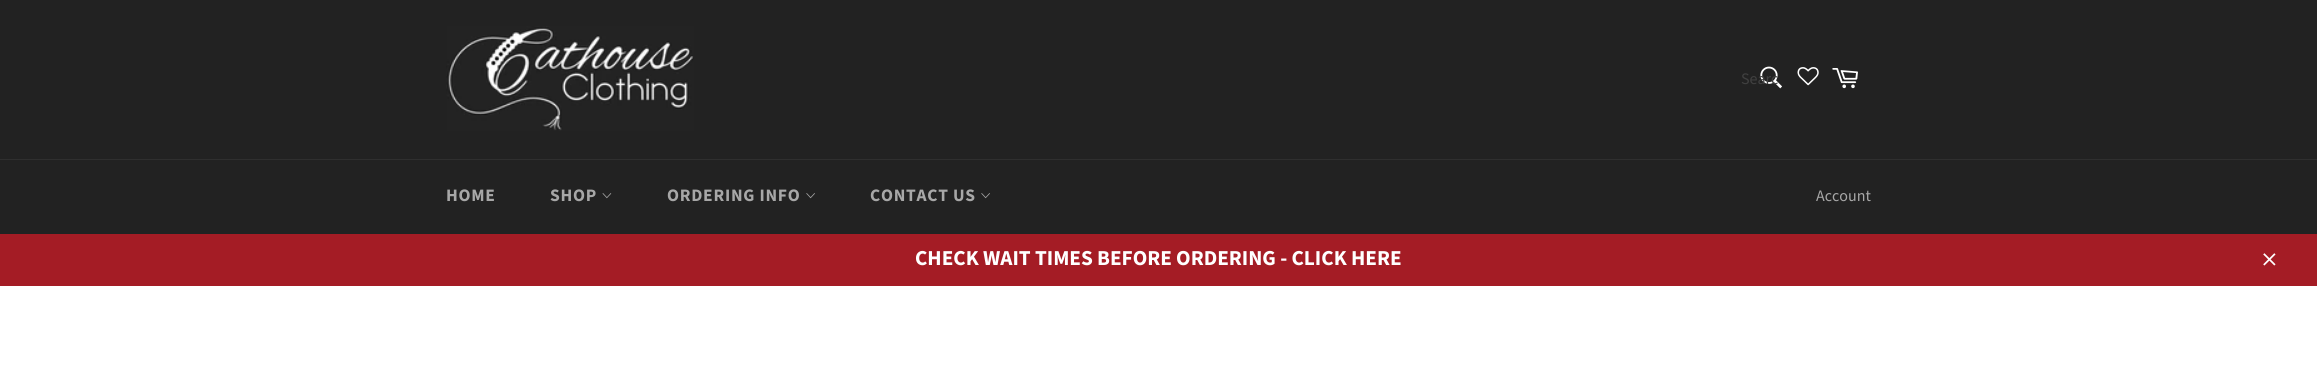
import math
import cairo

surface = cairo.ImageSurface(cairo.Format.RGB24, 2317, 366)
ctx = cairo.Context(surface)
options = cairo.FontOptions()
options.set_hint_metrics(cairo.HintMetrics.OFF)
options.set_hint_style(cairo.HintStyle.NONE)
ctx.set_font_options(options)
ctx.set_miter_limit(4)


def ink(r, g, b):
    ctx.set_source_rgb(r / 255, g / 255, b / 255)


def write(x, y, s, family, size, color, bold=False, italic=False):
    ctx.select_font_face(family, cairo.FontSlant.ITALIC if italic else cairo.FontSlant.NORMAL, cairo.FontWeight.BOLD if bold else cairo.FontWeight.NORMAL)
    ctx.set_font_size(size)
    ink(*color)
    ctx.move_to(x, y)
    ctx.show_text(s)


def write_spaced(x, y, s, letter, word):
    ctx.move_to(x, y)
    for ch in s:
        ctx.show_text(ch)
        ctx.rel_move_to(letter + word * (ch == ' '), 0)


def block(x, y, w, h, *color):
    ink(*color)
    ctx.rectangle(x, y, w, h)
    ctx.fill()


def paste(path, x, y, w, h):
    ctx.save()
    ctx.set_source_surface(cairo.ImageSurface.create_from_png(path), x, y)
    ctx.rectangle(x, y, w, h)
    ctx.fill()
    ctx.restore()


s1 = dict(family="Source Sans Pro", size=16, color=(64, 64, 64))
s2 = dict(family="Source Sans Pro", size=16, color=(167, 167, 167))
s3 = dict(family="Source Sans Pro", size=21.25, color=(255, 255, 255), bold=True)

ink(34, 34, 34)
ctx.paint()
paste("pic1.png", 446, 26, 248, 105)
paste("pic2.png", 1760, 66, 22, 23)
write(1741, 84, "Searc", **s1)
paste("pic3.png", 1797, 67, 22, 19)
paste("pic4.png", 1832, 68, 26, 21)
block(0, 159, 2317, 1, 47, 47, 47)
ctx.select_font_face("Source Sans Pro", cairo.FontSlant.NORMAL, cairo.FontWeight.BOLD)
ctx.set_font_size(17.5)
ink(167, 167, 167)
write_spaced(446, 201, "HOME", 0.75, 0)
write_spaced(550, 201, "SHOP", 0.75, 0)
paste("pic5.png", 602, 193, 10, 6)
write_spaced(667, 201, "ORDERING INFO", 0.75, 0)
paste("pic6.png", 806, 193, 9, 6)
write_spaced(870, 201, "CONTACT US", 0.75, 0)
paste("pic6.png", 981, 193, 9, 6)
write(1816, 201, "Account", **s2)
block(0, 234, 2317, 52, 164, 28, 37)
write(915, 265, "CHECK WAIT TIMES BEFORE ORDERING - CLICK HERE", **s3)
paste("pic7.png", 2263, 253, 13, 13)
block(0, 286, 2317, 80, 255, 255, 255)
surface.write_to_png("screenshot.png")
